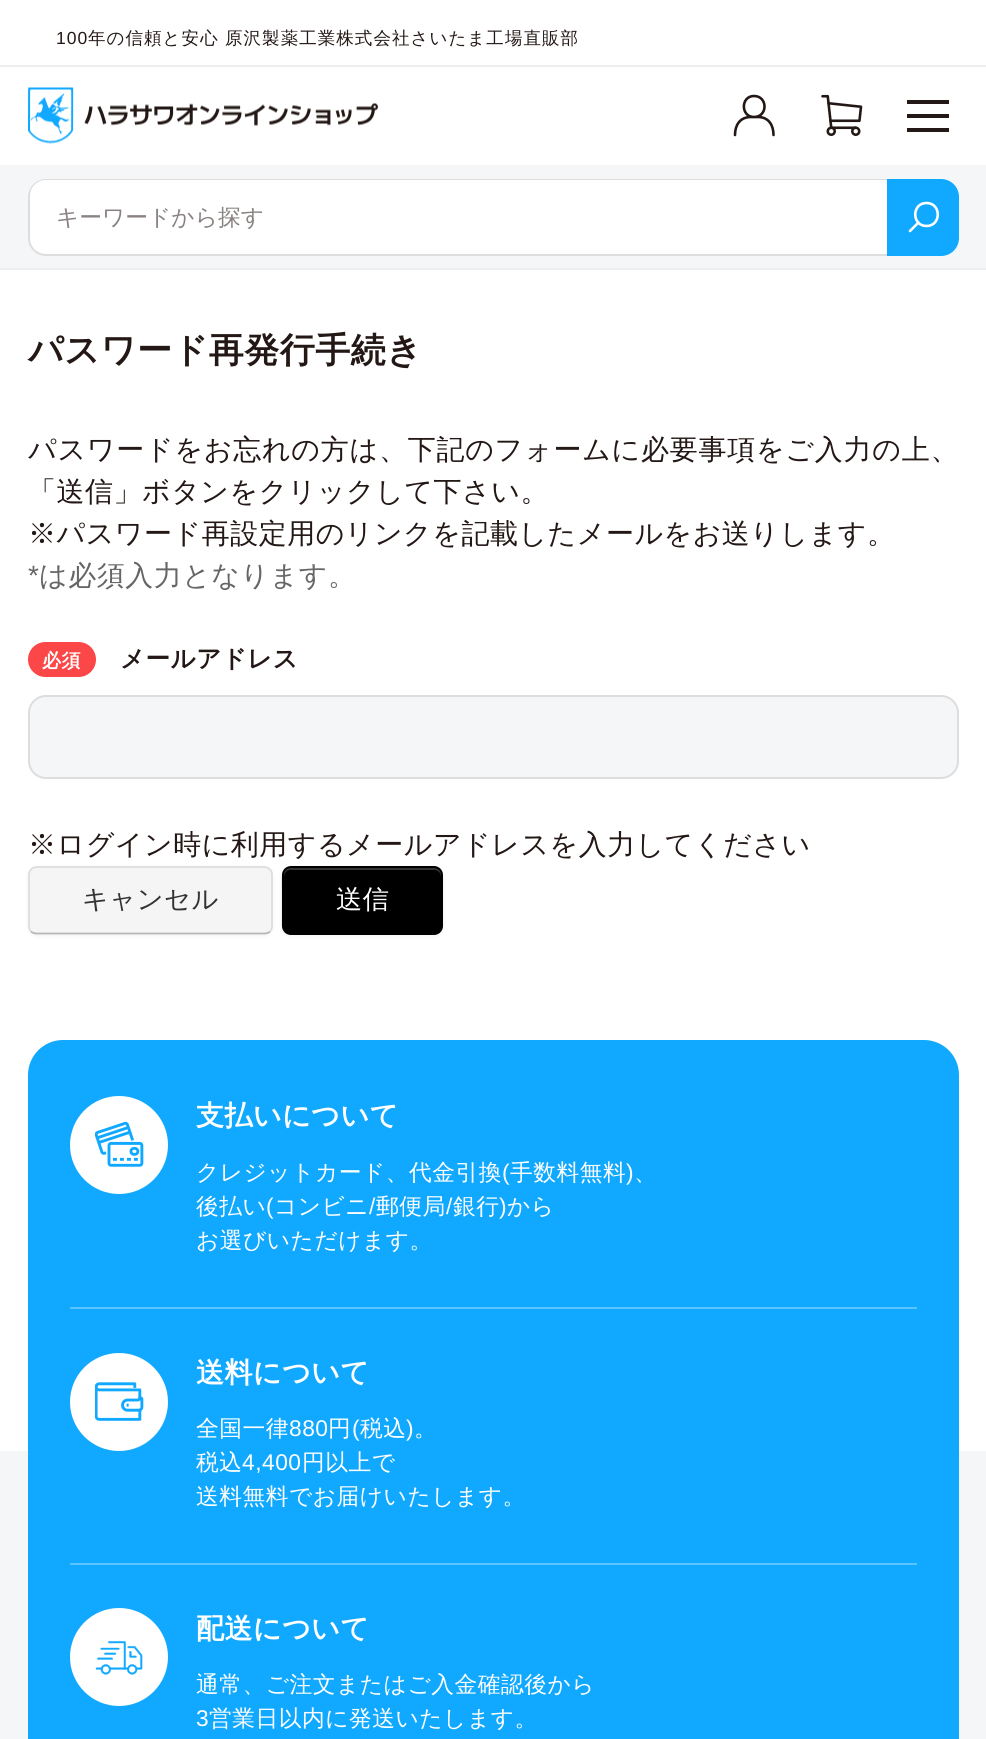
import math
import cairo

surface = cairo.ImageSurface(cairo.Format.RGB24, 986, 1739)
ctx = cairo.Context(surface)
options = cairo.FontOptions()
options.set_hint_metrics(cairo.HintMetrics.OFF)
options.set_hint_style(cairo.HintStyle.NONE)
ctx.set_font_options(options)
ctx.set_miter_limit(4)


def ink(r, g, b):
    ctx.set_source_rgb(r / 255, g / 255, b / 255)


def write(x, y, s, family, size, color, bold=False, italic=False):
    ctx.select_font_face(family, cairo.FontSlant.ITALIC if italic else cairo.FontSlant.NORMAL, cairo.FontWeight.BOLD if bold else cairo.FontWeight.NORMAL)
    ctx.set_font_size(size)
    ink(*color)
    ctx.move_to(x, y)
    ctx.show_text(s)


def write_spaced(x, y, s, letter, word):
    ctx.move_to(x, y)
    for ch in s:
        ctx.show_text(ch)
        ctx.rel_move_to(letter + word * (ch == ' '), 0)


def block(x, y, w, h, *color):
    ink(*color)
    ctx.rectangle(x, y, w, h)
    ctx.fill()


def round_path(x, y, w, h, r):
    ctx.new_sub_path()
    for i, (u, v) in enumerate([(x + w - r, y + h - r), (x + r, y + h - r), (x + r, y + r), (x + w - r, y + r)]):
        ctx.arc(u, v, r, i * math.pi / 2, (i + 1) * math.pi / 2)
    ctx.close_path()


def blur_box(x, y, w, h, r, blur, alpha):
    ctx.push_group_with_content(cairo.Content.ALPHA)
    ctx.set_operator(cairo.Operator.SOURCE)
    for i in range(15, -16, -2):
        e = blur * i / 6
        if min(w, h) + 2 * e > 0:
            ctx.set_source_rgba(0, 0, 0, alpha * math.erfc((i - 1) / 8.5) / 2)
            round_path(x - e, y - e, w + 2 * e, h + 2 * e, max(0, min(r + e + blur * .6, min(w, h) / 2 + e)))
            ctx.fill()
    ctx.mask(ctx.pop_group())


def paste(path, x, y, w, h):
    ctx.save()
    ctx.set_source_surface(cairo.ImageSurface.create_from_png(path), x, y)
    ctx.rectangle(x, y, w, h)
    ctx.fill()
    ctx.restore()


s1 = dict(family="WenQuanYi Zen Hei Medium", size=22.75, color=(136, 130, 129))

ink(255, 255, 255)
ctx.paint()
block(0, 65, 986, 2, 238, 238, 238)
ctx.select_font_face("Liberation Sans")
ctx.set_font_size(17.5)
ink(35, 24, 21)
write_spaced(56, 44, "100", 1.05, 0)
ctx.select_font_face("WenQuanYi Zen Hei Medium")
write_spaced(88, 44, "年の信頼と安心 原沢製薬工業株式会社さいたま工場直販部", 1.05, 0)
paste("pic1.png", 28, 87, 350, 57)
ctx.new_path()
ctx.move_to(754, 117)
ctx.curve_to(768, 117, 768, 96, 754, 96)
ctx.curve_to(740.5, 96, 740.5, 117, 754, 117)
ctx.close_path()
ctx.move_to(735, 135)
ctx.curve_to(735, 125, 740, 117, 751, 117)
ctx.line_to(758, 117)
ctx.curve_to(768.5, 117, 773.5, 125, 773.5, 135)
ctx.set_line_width(2.6)
ctx.set_line_cap(cairo.LineCap.ROUND)
ctx.set_line_join(cairo.LineJoin.ROUND)
ctx.stroke()
paste("pic2.png", 821, 94, 42, 42)
block(907, 100, 42, 4, 35, 24, 21)
block(907, 114, 42, 4, 35, 24, 21)
block(907, 128, 42, 4, 35, 24, 21)
block(0, 165, 986, 103, 245, 246, 247)
block(0, 268, 986, 2, 238, 238, 238)
ink(255, 255, 255)
ctx.new_path()
ctx.move_to(46, 179)
ctx.line_to(887, 179)
ctx.line_to(887, 256)
ctx.line_to(46, 256)
ctx.curve_to(36, 256, 28, 248, 28, 238)
ctx.line_to(28, 197)
ctx.curve_to(28, 187, 36, 179, 46, 179)
ctx.close_path()
ctx.fill()
ink(221, 221, 221)
ctx.new_path()
ctx.move_to(46, 180)
ctx.line_to(887, 180)
ctx.line_to(887, 179)
ctx.line_to(46, 179)
ctx.curve_to(36, 179, 28, 187, 28, 197)
ctx.line_to(28, 238)
ctx.curve_to(28, 248, 36, 256, 46, 256)
ctx.line_to(887, 256)
ctx.line_to(887, 254)
ctx.line_to(46, 254)
ctx.curve_to(37, 254, 30, 247, 30, 238)
ctx.line_to(30, 196)
ctx.curve_to(30, 187, 37, 180, 46, 180)
ctx.close_path()
ctx.fill()
write(56, 225, "キーワードから探す", **s1)
ink(17, 169, 255)
ctx.new_path()
ctx.move_to(887, 179)
ctx.line_to(941, 179)
ctx.curve_to(951, 179, 959, 187, 959, 197)
ctx.line_to(959, 238)
ctx.curve_to(959, 248, 951, 256, 941, 256)
ctx.line_to(887, 256)
ctx.close_path()
ctx.fill()
ctx.new_path()
ctx.move_to(926.5, 226)
ctx.curve_to(941.5, 226, 941.5, 203, 926.5, 203)
ctx.curve_to(911.5, 203, 911.5, 226, 926.5, 226)
ctx.close_path()
ctx.move_to(910, 231)
ctx.line_to(918.5, 222.5)
ink(255, 255, 255)
ctx.stroke()
ctx.select_font_face("WenQuanYi Zen Hei", cairo.FontSlant.NORMAL, cairo.FontWeight.BOLD)
ctx.set_font_size(35)
ink(35, 24, 21)
write_spaced(28, 362, "パスワード再発行手続き", 0.5, 0)
ctx.select_font_face("WenQuanYi Zen Hei Medium")
ctx.set_font_size(28)
write_spaced(28, 459, "パスワードをお忘れの方は、下記のフォームに必要事項をご入力の上、", 0.75, 0)
write_spaced(28, 501, "「送信」ボタンをクリックして下さい。", 0.5, 0)
write_spaced(28, 543, "※パスワード再設定用のリンクを記載したメールをお送りします。", 0.5, 0)
ctx.select_font_face("Liberation Sans")
ink(102, 102, 102)
write_spaced(28, 585, "*", 0.5, 0)
ctx.select_font_face("WenQuanYi Zen Hei Medium")
write_spaced(39, 585, "は必須入力となります。", 0.5, 0)
ink(251, 71, 71)
round_path(28, 642, 68, 35, 17.5)
ctx.fill()
ctx.select_font_face("WenQuanYi Zen Hei", cairo.FontSlant.NORMAL, cairo.FontWeight.BOLD)
ctx.set_font_size(19)
ink(255, 255, 255)
write_spaced(42, 667, "必須", 0.5, 0)
ctx.set_font_size(24.5)
ink(35, 24, 21)
write_spaced(120, 667, "メールアドレス", 0.5, 0)
ink(245, 246, 247)
round_path(29, 696, 929, 82, 17)
ctx.fill_preserve()
ink(221, 221, 221)
ctx.set_line_width(2)
ctx.set_line_cap(cairo.LineCap.BUTT)
ctx.set_line_join(cairo.LineJoin.MITER)
ctx.stroke()
ctx.select_font_face("WenQuanYi Zen Hei Medium")
ctx.set_font_size(28)
ink(35, 24, 21)
write_spaced(28, 854, "※ログイン時に利用するメールアドレスを入力してください", 0.5, 0)
ink(0, 0, 0)
blur_box(28, 868, 245, 68, 9, 2, 0.05)
ink(245, 245, 245)
round_path(28, 866, 245, 69, 9)
ctx.fill()
ctx.new_path()
ctx.move_to(270, 931.5)
ctx.curve_to(268.5, 933, 266.5, 933.5, 264, 933.5)
ctx.line_to(37, 933.5)
ctx.curve_to(34.5, 933.5, 32.5, 933, 31, 931.5)
ink(184, 184, 184)
ctx.set_line_width(1.8)
ctx.stroke()
ctx.new_path()
ctx.move_to(31, 931.5)
ctx.curve_to(29.5, 930, 29, 928, 29, 926)
ctx.line_to(29, 875)
ctx.curve_to(29, 873, 29.5, 871, 31, 869.5)
ctx.curve_to(32.5, 868, 34.5, 867, 37, 867)
ctx.line_to(264, 867)
ctx.curve_to(266.5, 867, 268.5, 868, 270, 869.5)
ctx.curve_to(271.5, 871, 272, 873, 272, 875)
ctx.line_to(272, 926)
ctx.curve_to(272, 928, 271.5, 930, 270, 931.5)
ctx.set_source_rgba(0, 0, 0, 0.1)
ctx.stroke()
ctx.set_font_size(26.25)
ink(51, 51, 51)
write_spaced(82, 908, "キャンセル", 0.5, 0)
ink(0, 0, 0)
blur_box(282, 868, 161, 68, 9, 2, 0.05)
ink(0, 0, 0)
round_path(282, 866, 161, 69, 9)
ctx.fill()
ink(51, 51, 51)
ctx.new_path()
ctx.move_to(290, 870)
ctx.line_to(434, 870)
ctx.curve_to(438, 870, 441, 873, 441, 877)
ctx.line_to(441, 875)
ctx.curve_to(441, 871, 438, 868, 434, 868)
ctx.line_to(291, 868)
ctx.curve_to(287, 868, 284, 871, 284, 875)
ctx.line_to(284, 877)
ctx.curve_to(284, 873, 287, 870, 290, 870)
ctx.close_path()
ctx.fill()
ctx.new_path()
ctx.move_to(439.5, 931.5)
ctx.curve_to(438, 933, 436, 933.5, 434, 933.5)
ctx.line_to(290.5, 933.5)
ctx.curve_to(288.5, 933.5, 286.5, 933, 285, 931.5)
ctx.set_source_rgba(0, 0, 0, 0.25)
ctx.stroke()
ctx.new_path()
ctx.move_to(285, 931.5)
ctx.curve_to(281.5, 928, 282.5, 921.5, 282.5, 917.5)
ctx.line_to(282.5, 900.5)
ctx.curve_to(282.5, 863.5, 277, 867, 314.5, 867)
ctx.line_to(410, 867)
ctx.curve_to(447.5, 867, 442, 863.5, 442, 900.5)
ctx.line_to(442, 917.5)
ctx.curve_to(442, 921.5, 443, 928, 439.5, 931.5)
ctx.set_source_rgba(0, 0, 0, 0.1)
ctx.stroke()
ink(255, 255, 255)
write_spaced(336, 908, "送信", 0.5, 0)
block(0, 1451, 986, 288, 245, 246, 247)
ink(17, 169, 255)
round_path(28, 1040, 931, 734, 35)
ctx.fill()
block(70, 1307, 847, 2, 90, 196, 255)
ink(255, 255, 255)
ctx.arc(119, 1145, 49, 0, 2 * math.pi)
ctx.fill()
paste("pic3.png", 95, 1121, 49, 46)
ctx.select_font_face("WenQuanYi Zen Hei", cairo.FontSlant.NORMAL, cairo.FontWeight.BOLD)
ctx.set_font_size(28)
write_spaced(196, 1125, "支払いについて", 0.5, 0)
ctx.select_font_face("WenQuanYi Zen Hei Medium")
ctx.set_font_size(22.75)
write_spaced(196, 1180, "クレジットカード、代金引換", 0.5, 0)
ctx.select_font_face("Liberation Sans")
write_spaced(502, 1180, "(", 0.5, 0)
ctx.select_font_face("WenQuanYi Zen Hei Medium")
write_spaced(510, 1180, "手数料無料", 0.5, 0)
ctx.select_font_face("Liberation Sans")
write_spaced(626, 1180, ")", 0.5, 0)
ctx.select_font_face("WenQuanYi Zen Hei Medium")
write_spaced(634, 1180, "、", 0.5, 0)
write_spaced(196, 1214, "後払い", 0.5, 0)
ctx.select_font_face("Liberation Sans")
write_spaced(266, 1214, "(", 0.5, 0)
ctx.select_font_face("WenQuanYi Zen Hei Medium")
write_spaced(274, 1214, "コンビニ", 0.5, 0)
ctx.select_font_face("Liberation Sans")
write_spaced(369, 1214, "/", 0.5, 0)
ctx.select_font_face("WenQuanYi Zen Hei Medium")
write_spaced(376, 1214, "郵便局", 0.5, 0)
ctx.select_font_face("Liberation Sans")
write_spaced(446, 1214, "/", 0.5, 0)
ctx.select_font_face("WenQuanYi Zen Hei Medium")
write_spaced(453, 1214, "銀行", 0.5, 0)
ctx.select_font_face("Liberation Sans")
write_spaced(499, 1214, ")", 0.5, 0)
ctx.select_font_face("WenQuanYi Zen Hei Medium")
write_spaced(507, 1214, "から", 0.5, 0)
write_spaced(196, 1248, "お選びいただけます。", 0.5, 0)
block(70, 1563, 847, 2, 90, 196, 255)
ink(255, 255, 255)
ctx.new_path()
ctx.arc(119, 1402, 49, 0, 2 * math.pi)
ctx.fill()
paste("pic4.png", 95, 1382, 49, 39)
ctx.select_font_face("WenQuanYi Zen Hei", cairo.FontSlant.NORMAL, cairo.FontWeight.BOLD)
ctx.set_font_size(28)
write_spaced(196, 1382, "送料について", 0.5, 0)
ctx.select_font_face("WenQuanYi Zen Hei Medium")
ctx.set_font_size(22.75)
write_spaced(196, 1436, "全国一律", 0.5, 0)
ctx.select_font_face("Liberation Sans")
write_spaced(289, 1436, "880", 0.5, 0)
ctx.select_font_face("WenQuanYi Zen Hei Medium")
write_spaced(328, 1436, "円", 0.5, 0)
ctx.select_font_face("Liberation Sans")
write_spaced(352, 1436, "(", 0.5, 0)
ctx.select_font_face("WenQuanYi Zen Hei Medium")
write_spaced(360, 1436, "税込", 0.5, 0)
ctx.select_font_face("Liberation Sans")
write_spaced(406, 1436, ")", 0.5, 0)
ctx.select_font_face("WenQuanYi Zen Hei Medium")
write_spaced(414, 1436, "。", 0.5, 0)
write_spaced(196, 1470, "税込", 0.5, 0)
ctx.select_font_face("Liberation Sans")
write_spaced(242, 1470, "4,400", 0.5, 0)
ctx.select_font_face("WenQuanYi Zen Hei Medium")
write_spaced(302, 1470, "円以上で", 0.5, 0)
write_spaced(196, 1504, "送料無料でお届けいたします。", 0.5, 0)
ctx.new_path()
ctx.arc(119, 1657, 49, 0, 2 * math.pi)
ctx.fill()
paste("pic5.png", 95, 1641, 48, 34)
ctx.select_font_face("WenQuanYi Zen Hei", cairo.FontSlant.NORMAL, cairo.FontWeight.BOLD)
ctx.set_font_size(28)
write_spaced(196, 1638, "配送について", 0.5, 0)
ctx.select_font_face("WenQuanYi Zen Hei Medium")
ctx.set_font_size(22.75)
write_spaced(196, 1692, "通常、ご注文またはご入金確認後から", 0.5, 0)
ctx.select_font_face("Liberation Sans")
write_spaced(196, 1726, "3", 0.5, 0)
ctx.select_font_face("WenQuanYi Zen Hei Medium")
write_spaced(209, 1726, "営業日以内に発送いたします。", 0.5, 0)
surface.write_to_png("screenshot.png")
